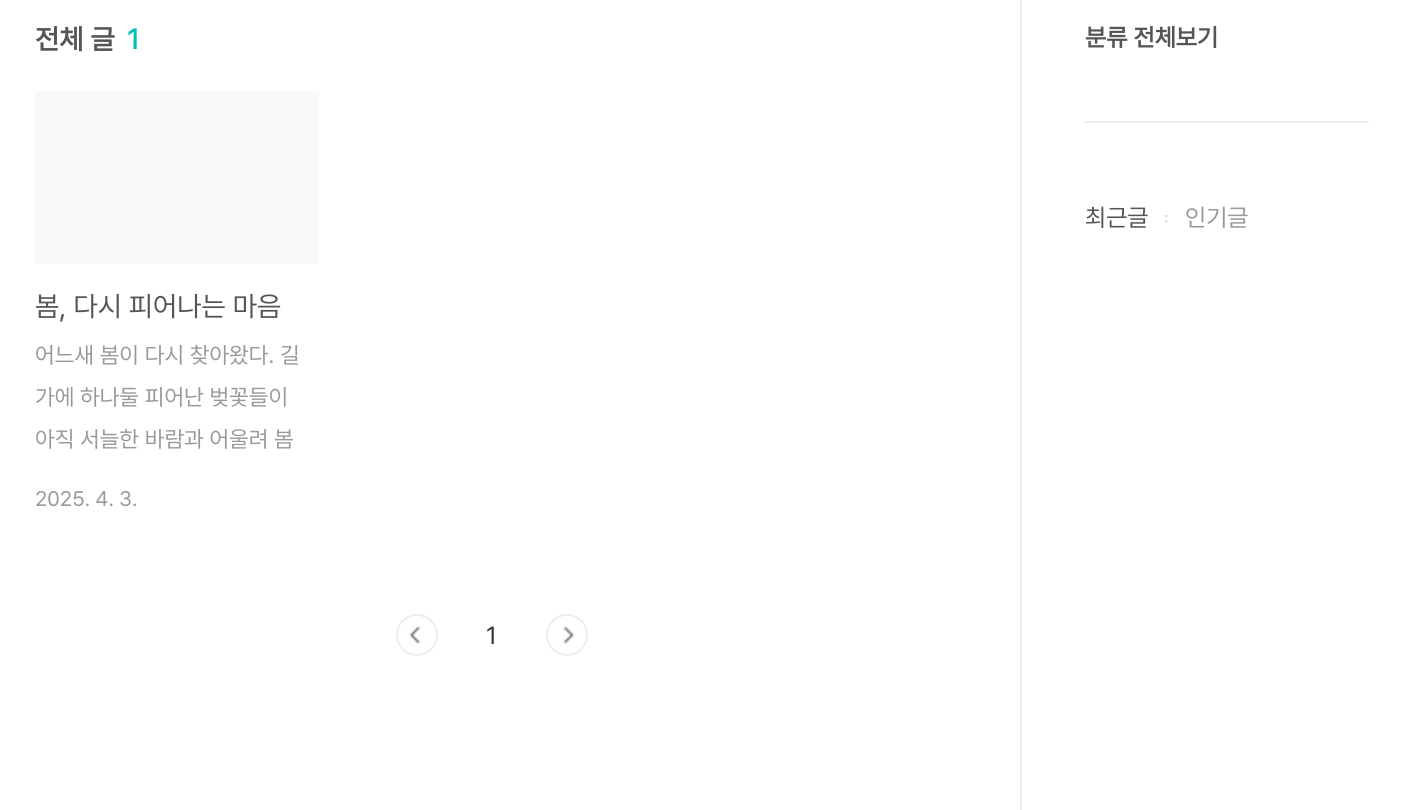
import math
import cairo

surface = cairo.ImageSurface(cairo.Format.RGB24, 1402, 810)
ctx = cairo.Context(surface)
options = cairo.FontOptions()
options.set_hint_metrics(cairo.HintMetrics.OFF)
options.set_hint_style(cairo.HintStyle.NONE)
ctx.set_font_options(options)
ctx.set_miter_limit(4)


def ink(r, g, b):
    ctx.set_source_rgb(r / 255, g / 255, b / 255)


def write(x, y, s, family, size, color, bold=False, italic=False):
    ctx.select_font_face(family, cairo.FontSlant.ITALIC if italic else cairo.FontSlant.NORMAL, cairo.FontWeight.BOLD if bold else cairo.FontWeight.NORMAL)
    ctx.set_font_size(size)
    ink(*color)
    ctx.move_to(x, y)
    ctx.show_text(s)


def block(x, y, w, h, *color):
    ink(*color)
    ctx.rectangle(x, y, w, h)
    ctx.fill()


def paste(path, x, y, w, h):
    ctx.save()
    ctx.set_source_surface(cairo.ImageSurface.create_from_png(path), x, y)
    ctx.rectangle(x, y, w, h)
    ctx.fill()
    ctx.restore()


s1 = dict(family="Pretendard", size=28, color=(85, 85, 85), bold=True)
s2 = dict(family="Pretendard", size=28, color=(4, 190, 184), bold=True)
s3 = dict(family="Pretendard", size=28, color=(85, 85, 85))
s4 = dict(family="Pretendard", size=22.75, color=(153, 153, 153))
s5 = dict(family="Pretendard", size=21, color=(153, 153, 153))
s6 = dict(family="Pretendard", size=24.5, color=(51, 51, 51))
s7 = dict(family="Pretendard", size=24.5, color=(85, 85, 85), bold=True)
s8 = dict(family="Pretendard", size=24.5, color=(85, 85, 85))
s9 = dict(family="Pretendard", size=24.5, color=(153, 153, 153))

ink(255, 255, 255)
ctx.paint()
write(35, 49, "전체 글", **s1)
write(127, 49, "1", **s2)
block(35, 91, 284, 173, 248, 248, 248)
write(35, 316, "봄, 다시 피어나는 마음", **s3)
write(35, 363, "어느새 봄이 다시 찾아왔다. 길", **s4)
write(35, 405, "가에 하나둘 피어난 벚꽃들이", **s4)
write(35, 447, "아직 서늘한 바람과 어울려 봄", **s4)
write(35, 506, "2025. 4. 3.", **s5)
paste("pic1.png", 409, 626, 12, 18)
ctx.arc(417, 635, 20, 0, 2 * math.pi)
ink(238, 238, 238)
ctx.stroke()
write(486, 644, "1", **s6)
paste("pic2.png", 563, 626, 12, 18)
ctx.arc(567, 635, 20, 0, 2 * math.pi)
ink(238, 238, 238)
ctx.stroke()
block(1020, 0, 2, 810, 238, 238, 238)
write(1085, 46, "분류 전체보기", **s7)
block(1085, 121, 284, 2, 238, 238, 238)
write(1085, 226, "최근글", **s8)
paste("pic3.png", 1165, 215, 3, 8)
write(1185, 226, "인기글", **s9)
surface.write_to_png("screenshot.png")
